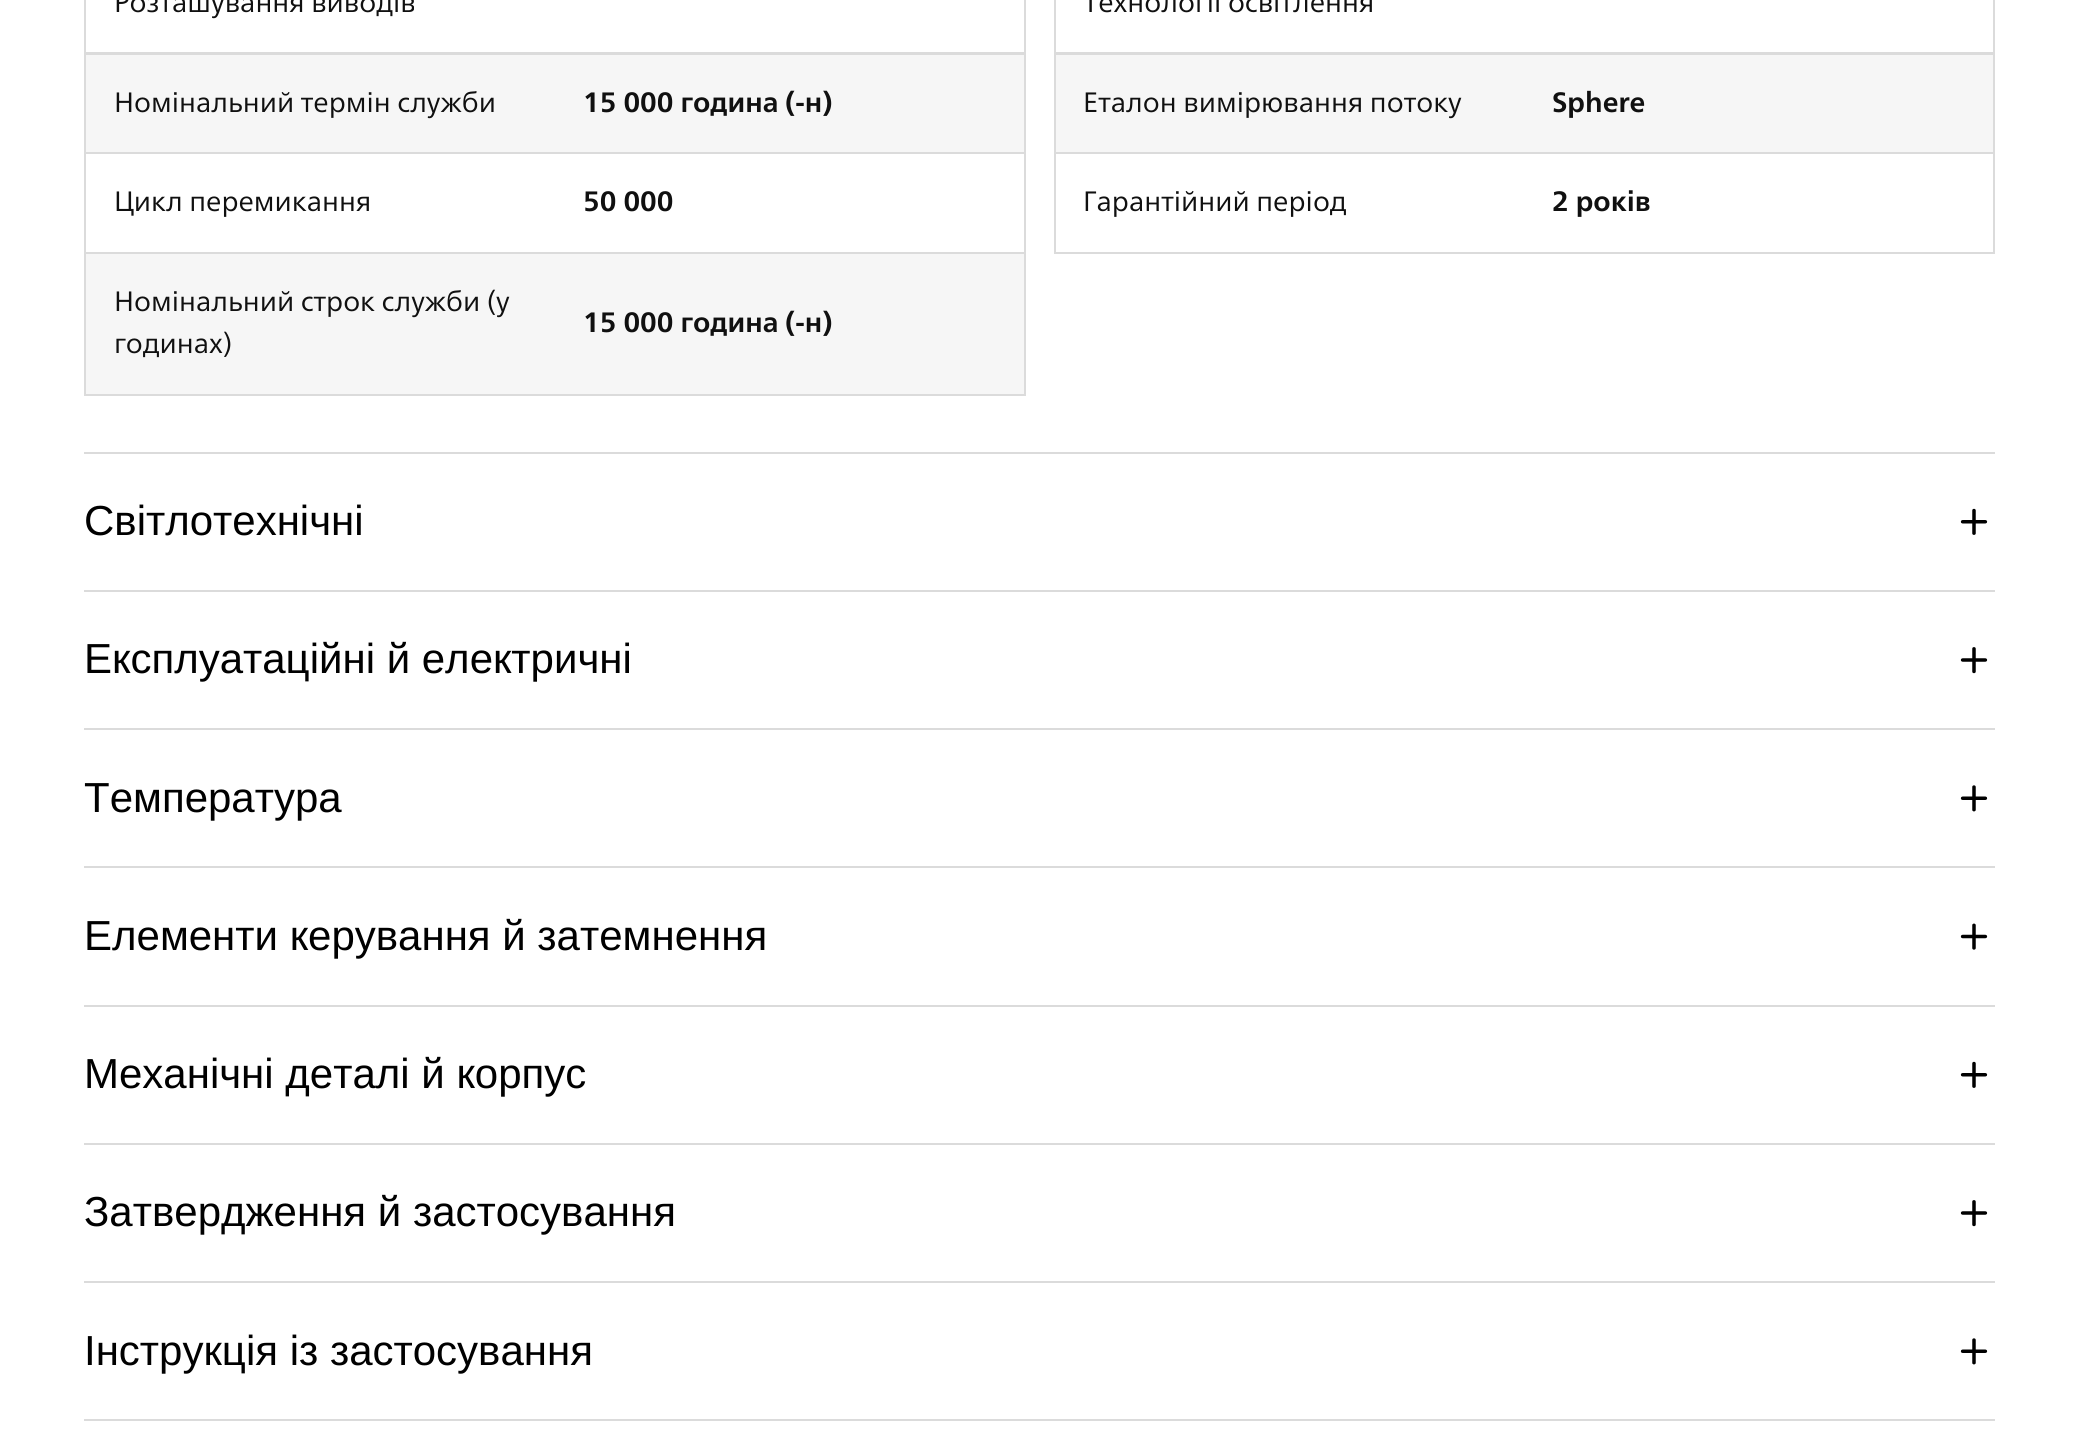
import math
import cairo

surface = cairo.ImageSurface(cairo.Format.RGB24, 2078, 1440)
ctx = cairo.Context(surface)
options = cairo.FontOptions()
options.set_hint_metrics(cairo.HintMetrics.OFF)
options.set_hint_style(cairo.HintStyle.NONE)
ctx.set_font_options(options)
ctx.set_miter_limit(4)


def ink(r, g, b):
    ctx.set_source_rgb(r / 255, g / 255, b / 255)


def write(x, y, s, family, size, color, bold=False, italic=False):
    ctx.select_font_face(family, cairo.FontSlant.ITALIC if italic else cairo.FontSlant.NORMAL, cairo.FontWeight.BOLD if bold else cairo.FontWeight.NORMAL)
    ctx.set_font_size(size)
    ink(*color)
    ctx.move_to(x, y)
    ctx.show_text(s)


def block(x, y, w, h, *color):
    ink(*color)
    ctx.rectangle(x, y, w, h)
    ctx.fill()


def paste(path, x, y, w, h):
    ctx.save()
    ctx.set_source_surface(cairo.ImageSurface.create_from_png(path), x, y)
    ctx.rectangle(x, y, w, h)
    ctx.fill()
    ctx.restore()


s1 = dict(family="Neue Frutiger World", size=28, color=(16, 16, 16))
s2 = dict(family="Neue Frutiger World", size=28, color=(16, 16, 16), bold=True)
s3 = dict(family="Liberation Sans", size=42, color=(0, 0, 0))

ink(255, 255, 255)
ctx.paint()
ctx.rectangle(85, -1, 940, 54)
ink(219, 219, 219)
ctx.stroke()
write(114, 12, "Розташування виводів", **s1)
ctx.rectangle(1055, -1, 939, 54)
ink(219, 219, 219)
ctx.stroke()
write(1083, 12, "Технології освітлення", **s1)
ink(246, 246, 246)
ctx.rectangle(85, 54, 940, 99)
ctx.fill_preserve()
ink(219, 219, 219)
ctx.stroke()
write(114, 112, "Номінальний термін служби", **s1)
write(583, 112, "15 000 година (-н)", **s2)
ink(246, 246, 246)
ctx.rectangle(1055, 54, 939, 99)
ctx.fill_preserve()
ink(219, 219, 219)
ctx.stroke()
write(1083, 112, "Еталон вимірювання потоку", **s1)
write(1552, 112, "Sphere", **s2)
ctx.rectangle(85, 153, 940, 100)
ink(219, 219, 219)
ctx.stroke()
write(114, 211, "Цикл перемикання", **s1)
write(583, 211, "50 000", **s2)
ctx.rectangle(1055, 153, 939, 100)
ink(219, 219, 219)
ctx.stroke()
write(1083, 211, "Гарантійний період", **s1)
write(1552, 211, "2 років", **s2)
ink(246, 246, 246)
ctx.rectangle(85, 253, 940, 142)
ctx.fill_preserve()
ink(219, 219, 219)
ctx.stroke()
write(114, 311, "Номінальний строк служби (у", **s1)
write(114, 353, "годинах)", **s1)
write(583, 332, "15 000 година (-н)", **s2)
block(84, 452, 1911, 2, 219, 219, 219)
write(84, 535, "Світлотехнічні", **s3)
paste("pic1.png", 1960, 508, 28, 27)
block(84, 590, 1911, 2, 219, 219, 219)
write(84, 673, "Експлуатаційні й електричні", **s3)
paste("pic2.png", 1960, 647, 28, 27)
block(84, 728, 1911, 2, 219, 219, 219)
write(84, 812, "Температура", **s3)
paste("pic3.png", 1960, 785, 28, 27)
block(84, 866, 1911, 2, 219, 219, 219)
write(84, 950, "Елементи керування й затемнення", **s3)
paste("pic4.png", 1960, 923, 28, 27)
block(84, 1005, 1911, 2, 219, 219, 219)
write(84, 1088, "Механічні деталі й корпус", **s3)
paste("pic1.png", 1960, 1061, 28, 27)
block(84, 1143, 1911, 2, 219, 219, 219)
write(84, 1226, "Затвердження й застосування", **s3)
paste("pic2.png", 1960, 1200, 28, 27)
block(84, 1281, 1911, 2, 219, 219, 219)
write(84, 1365, "Інструкція із застосування", **s3)
paste("pic3.png", 1960, 1338, 28, 27)
block(84, 1419, 1911, 2, 219, 219, 219)
surface.write_to_png("screenshot.png")
